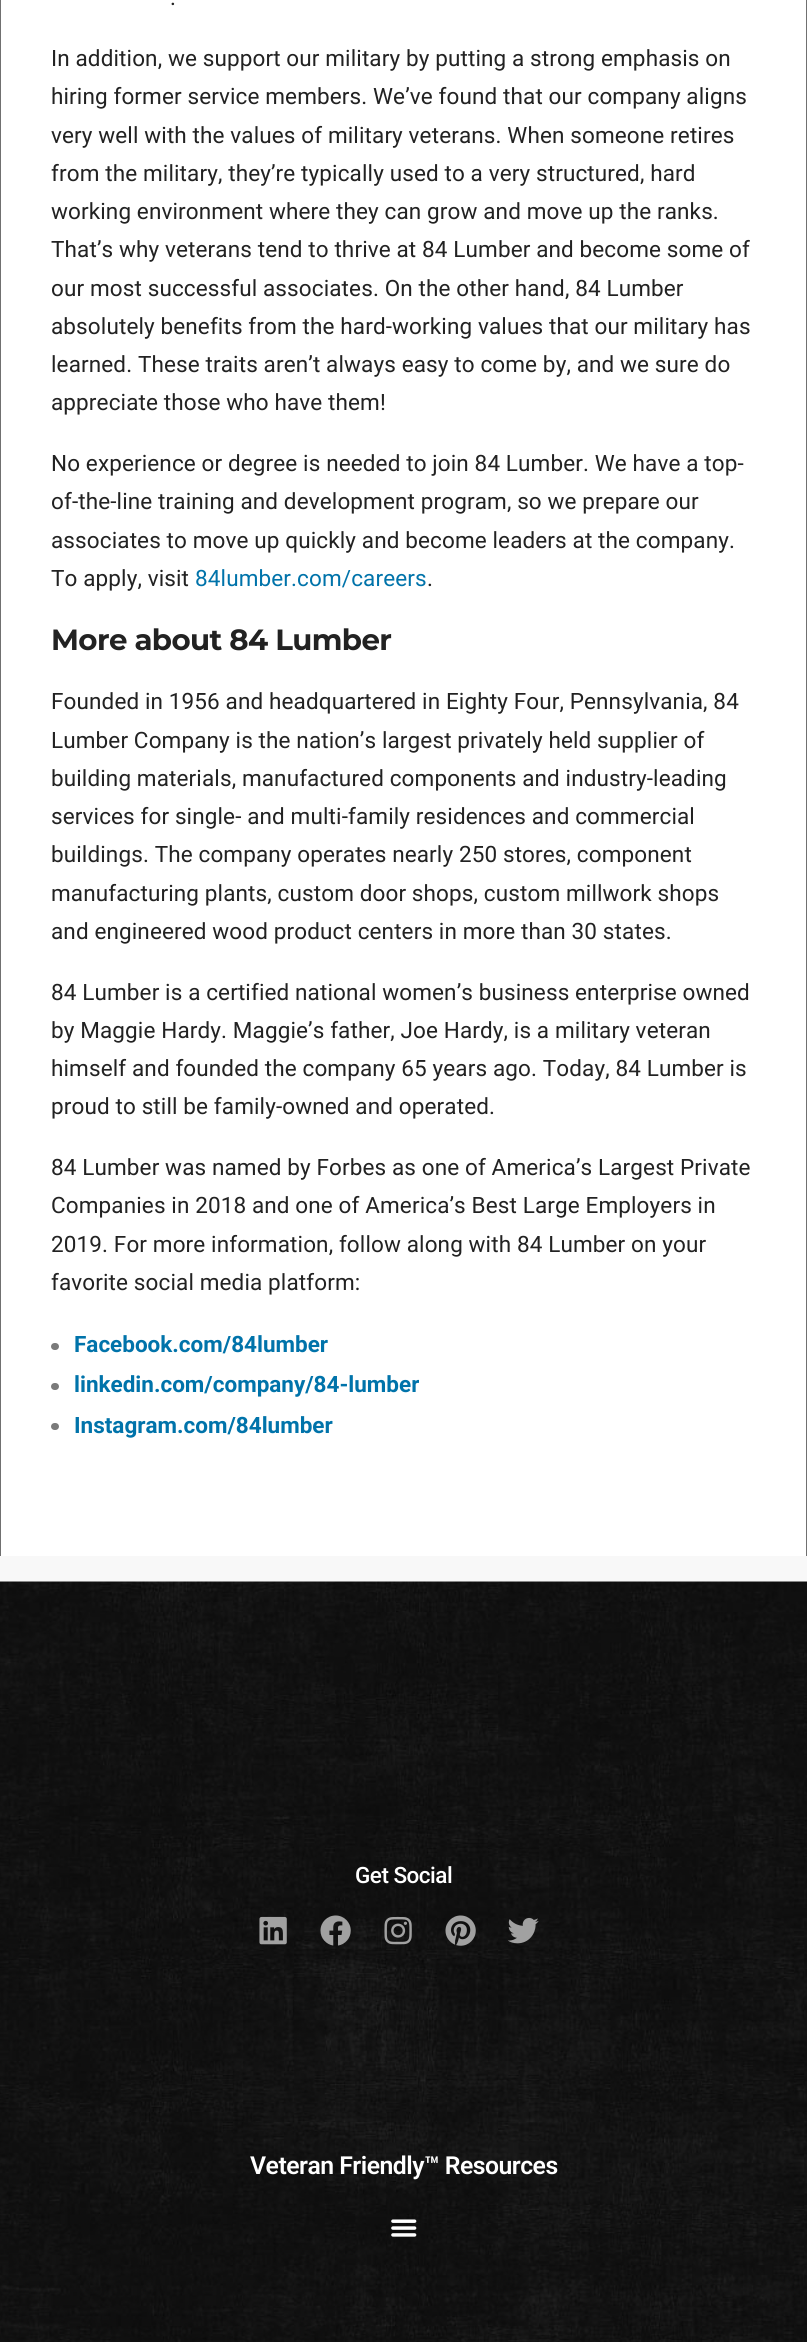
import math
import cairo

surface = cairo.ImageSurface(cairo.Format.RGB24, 807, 2342)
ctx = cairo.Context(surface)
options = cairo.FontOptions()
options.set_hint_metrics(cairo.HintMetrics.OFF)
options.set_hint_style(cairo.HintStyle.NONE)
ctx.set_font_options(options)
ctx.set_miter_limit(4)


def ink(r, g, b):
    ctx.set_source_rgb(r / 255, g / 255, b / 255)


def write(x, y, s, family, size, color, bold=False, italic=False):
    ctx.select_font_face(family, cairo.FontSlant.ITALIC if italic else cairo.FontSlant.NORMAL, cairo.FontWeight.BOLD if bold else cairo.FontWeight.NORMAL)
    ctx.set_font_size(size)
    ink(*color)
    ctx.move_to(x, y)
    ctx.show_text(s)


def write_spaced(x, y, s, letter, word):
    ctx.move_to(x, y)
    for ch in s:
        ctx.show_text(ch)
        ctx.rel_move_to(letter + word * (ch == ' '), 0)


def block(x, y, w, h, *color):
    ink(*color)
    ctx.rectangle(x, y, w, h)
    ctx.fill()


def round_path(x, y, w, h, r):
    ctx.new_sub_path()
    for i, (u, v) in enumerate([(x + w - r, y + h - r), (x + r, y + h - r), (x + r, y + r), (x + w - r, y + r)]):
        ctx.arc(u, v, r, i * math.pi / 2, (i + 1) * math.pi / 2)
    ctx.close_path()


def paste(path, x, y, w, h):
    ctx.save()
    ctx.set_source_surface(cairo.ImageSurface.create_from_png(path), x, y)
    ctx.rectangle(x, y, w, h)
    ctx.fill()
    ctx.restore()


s1 = dict(family="Roboto", size=22.5, color=(0, 115, 170), bold=True)

ink(255, 255, 255)
ctx.paint()
block(806, 0, 1, 1556, 112, 112, 112)
block(0, 0, 1, 1556, 112, 112, 112)
ctx.select_font_face("Roboto")
ctx.set_font_size(22.5)
ink(34, 34, 34)
write_spaced(170, 5, ".", 0.12, 0)
write_spaced(51, 66, "In addition, we support our military by putting a strong emphasis on", 0.12, 0)
write_spaced(51, 104, "hiring former service members. We’ve found that our company aligns", 0.12, 0)
write_spaced(51, 143, "very well with the values of military veterans. When someone retires", 0.12, 0)
write_spaced(51, 181, "from the military, they’re typically used to a very structured, hard", 0.12, 0)
write_spaced(51, 219, "working environment where they can grow and move up the ranks.", 0.12, 0)
write_spaced(51, 257, "That’s why veterans tend to thrive at 84 Lumber and become some of", 0.12, 0)
write_spaced(51, 296, "our most successful associates. On the other hand, 84 Lumber", 0.12, 0)
write_spaced(51, 334, "absolutely benefits from the hard-working values that our military has", 0.12, 0)
write_spaced(51, 372, "learned. These traits aren’t always easy to come by, and we sure do", 0.12, 0)
write_spaced(51, 410, "appreciate those who have them!", 0.12, 0)
write_spaced(51, 471, "No experience or degree is needed to join 84 Lumber. We have a top-", 0.12, 0)
write_spaced(51, 509, "of-the-line training and development program, so we prepare our", 0.12, 0)
write_spaced(51, 548, "associates to move up quickly and become leaders at the company.", 0.12, 0)
write_spaced(51, 586, "To apply, visit", 0.12, 0)
ink(0, 115, 170)
write_spaced(195, 586, "84lumber.com/careers", 0.12, 0)
ink(34, 34, 34)
write_spaced(427, 586, ".", 0.12, 0)
ctx.select_font_face("Montserrat", cairo.FontSlant.NORMAL, cairo.FontWeight.BOLD)
ctx.set_font_size(29.25)
write_spaced(51, 650, "More about 84 Lumber", -0.6, 0)
ctx.select_font_face("Roboto")
ctx.set_font_size(22.5)
write_spaced(51, 709, "Founded in 1956 and headquartered in Eighty Four, Pennsylvania, 84", 0.12, 0)
write_spaced(51, 748, "Lumber Company is the nation’s largest privately held supplier of", 0.12, 0)
write_spaced(51, 786, "building materials, manufactured components and industry-leading", 0.12, 0)
write_spaced(51, 824, "services for single- and multi-family residences and commercial", 0.12, 0)
write_spaced(51, 862, "buildings. The company operates nearly 250 stores, component", 0.12, 0)
write_spaced(51, 901, "manufacturing plants, custom door shops, custom millwork shops", 0.12, 0)
write_spaced(51, 939, "and engineered wood product centers in more than 30 states.", 0.12, 0)
write_spaced(51, 1000, "84 Lumber is a certified national women’s business enterprise owned", 0.12, 0)
write_spaced(51, 1038, "by Maggie Hardy. Maggie’s father, Joe Hardy, is a military veteran", 0.12, 0)
write_spaced(51, 1076, "himself and founded the company 65 years ago. Today, 84 Lumber is", 0.12, 0)
write_spaced(51, 1114, "proud to still be family-owned and operated.", 0.12, 0)
write_spaced(51, 1175, "84 Lumber was named by Forbes as one of America’s Largest Private", 0.12, 0)
write_spaced(51, 1213, "Companies in 2018 and one of America’s Best Large Employers in", 0.12, 0)
write_spaced(51, 1252, "2019. For more information, follow along with 84 Lumber on your", 0.12, 0)
write_spaced(51, 1290, "favorite social media platform:", 0.12, 0)
ink(122, 122, 122)
round_path(51, 1343, 8, 7, 3.5)
ctx.fill()
write(74, 1352, "Facebook.com/84lumber", **s1)
ink(122, 122, 122)
round_path(51, 1383, 8, 7, 3.5)
ctx.fill()
write(74, 1392, "linkedin.com/company/84-lumber", **s1)
ink(122, 122, 122)
round_path(51, 1423, 8, 7, 3.5)
ctx.fill()
write(74, 1433, "Instagram.com/84lumber", **s1)
block(0, 1556, 807, 25, 248, 248, 248)
paste("pic1.png", 0, 1581, 807, 761)
ctx.select_font_face("Roboto Medium")
ink(255, 255, 255)
write_spaced(355, 1883, "Get Social", -0.5, 0)
paste("pic2.png", 259, 1916, 28, 29)
paste("pic3.png", 320, 1915, 31, 31)
paste("pic4.png", 384, 1916, 28, 29)
paste("pic5.png", 445, 1915, 31, 31)
paste("pic6.png", 508, 1917, 31, 27)
ctx.select_font_face("Roboto SemiBold")
ctx.set_font_size(24.75)
write_spaced(250, 2174, "Veteran Friendly™ Resources", -0.5, 0)
paste("pic7.png", 391, 2219, 26, 18)
surface.write_to_png("screenshot.png")
